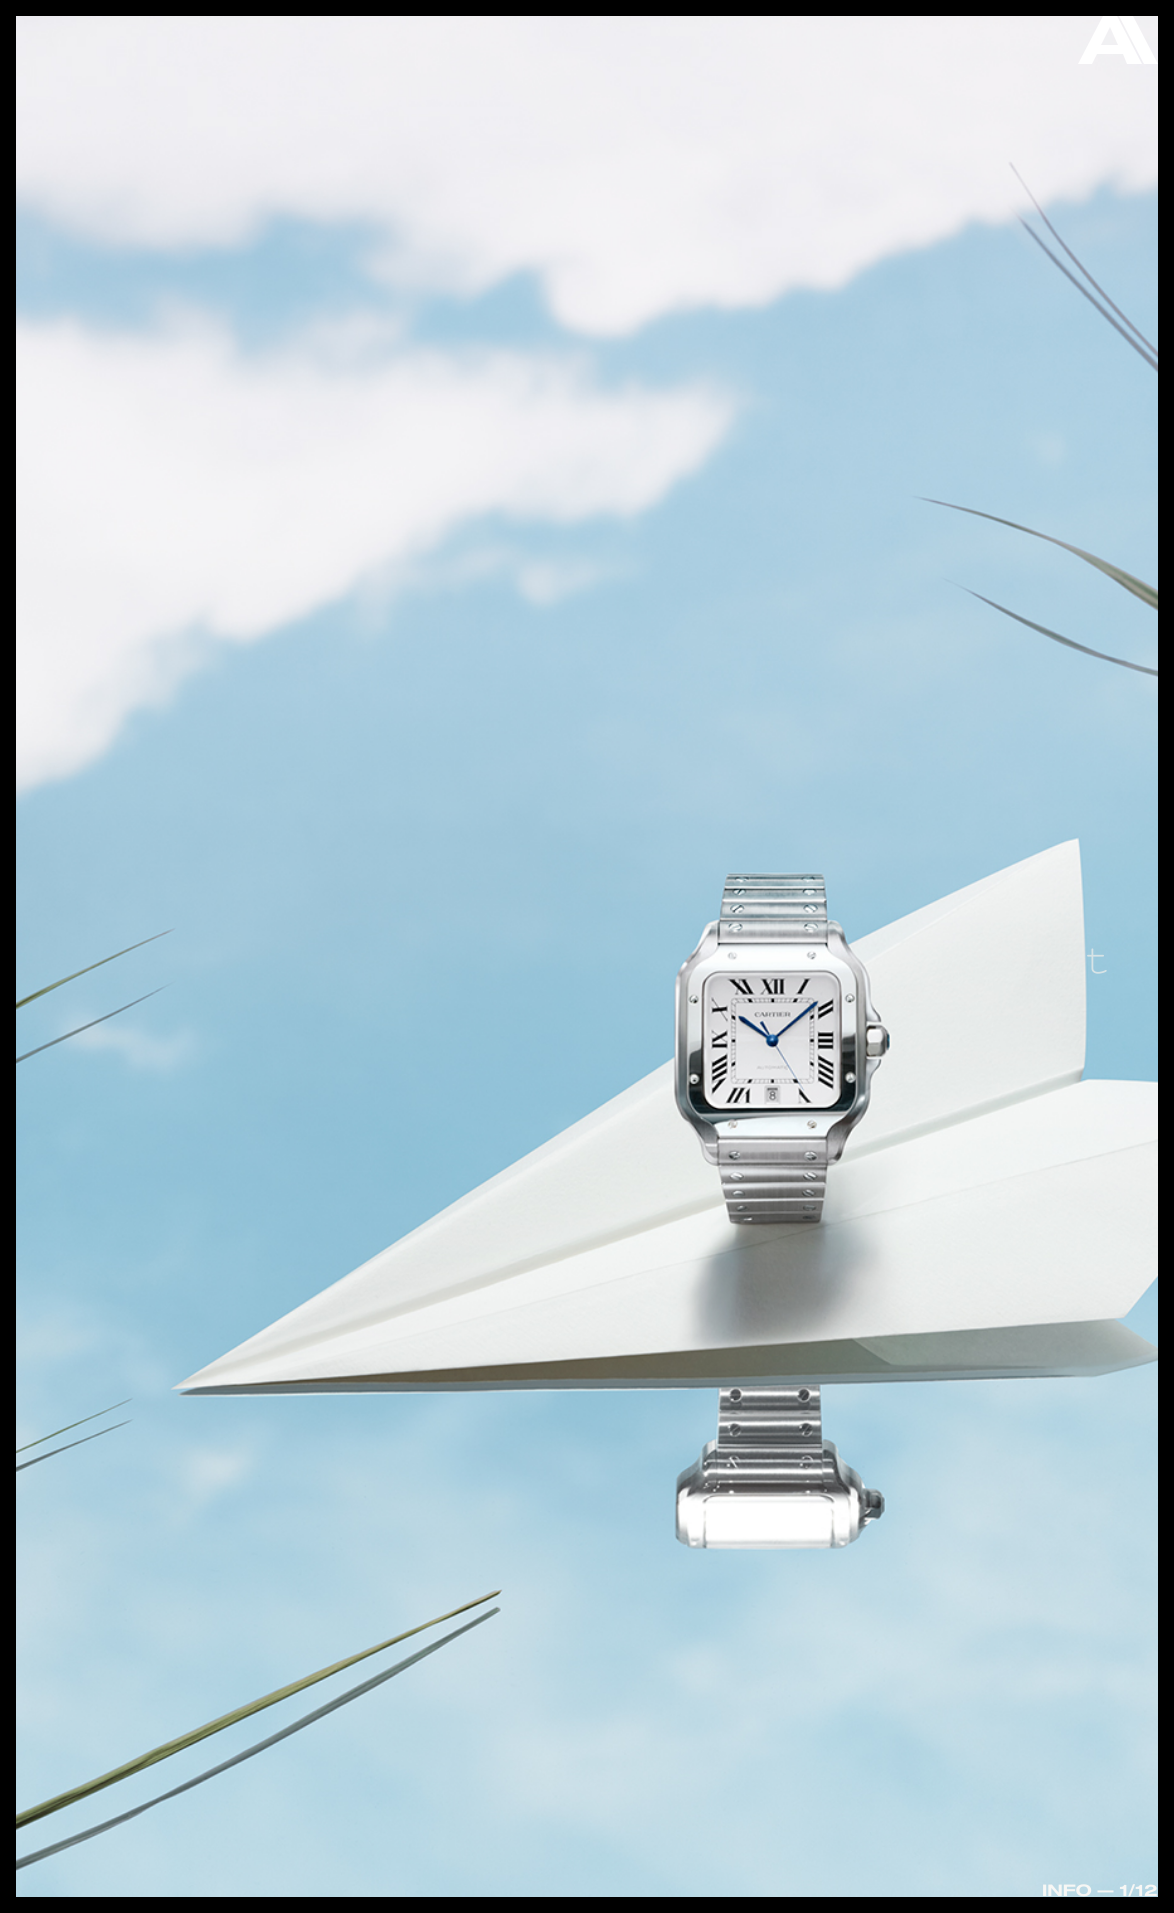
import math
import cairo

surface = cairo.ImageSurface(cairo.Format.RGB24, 1174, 1913)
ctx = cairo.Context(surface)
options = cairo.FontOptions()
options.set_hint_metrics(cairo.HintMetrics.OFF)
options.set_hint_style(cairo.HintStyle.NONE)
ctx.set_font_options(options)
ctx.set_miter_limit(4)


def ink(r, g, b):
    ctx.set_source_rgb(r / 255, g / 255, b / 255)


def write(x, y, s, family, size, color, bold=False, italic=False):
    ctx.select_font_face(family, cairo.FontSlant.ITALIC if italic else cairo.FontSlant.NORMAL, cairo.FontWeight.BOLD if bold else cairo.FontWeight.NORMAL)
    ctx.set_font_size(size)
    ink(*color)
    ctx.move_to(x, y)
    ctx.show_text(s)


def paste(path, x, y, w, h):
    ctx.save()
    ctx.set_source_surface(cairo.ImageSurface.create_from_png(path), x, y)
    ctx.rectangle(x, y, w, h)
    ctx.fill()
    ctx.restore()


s1 = dict(family="Courier New", size=43, color=(215, 227, 230))
s2 = dict(family="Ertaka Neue", size=16, color=(247, 247, 245), bold=True)

ink(0, 0, 0)
ctx.paint()
paste("pic1.png", 16, 16, 1142, 1881)
ink(255, 255, 255)
ctx.new_path()
ctx.move_to(1110, 27)
ctx.line_to(1118, 45)
ctx.line_to(1101, 45)
ctx.close_path()
ctx.move_to(1103, 16)
ctx.line_to(1078, 64)
ctx.line_to(1092, 64)
ctx.line_to(1097, 54)
ctx.line_to(1123, 54)
ctx.line_to(1127, 64)
ctx.line_to(1142, 64)
ctx.line_to(1117, 16)
ctx.close_path()
ctx.fill()
ctx.new_path()
ctx.move_to(1119, 16)
ctx.line_to(1144, 64)
ctx.line_to(1158, 64)
ctx.line_to(1133, 16)
ctx.close_path()
ctx.fill()
write(1084, 973, "t", **s1)
write(1042, 1896, "INFO — 1/12", **s2)
surface.write_to_png("screenshot.png")
